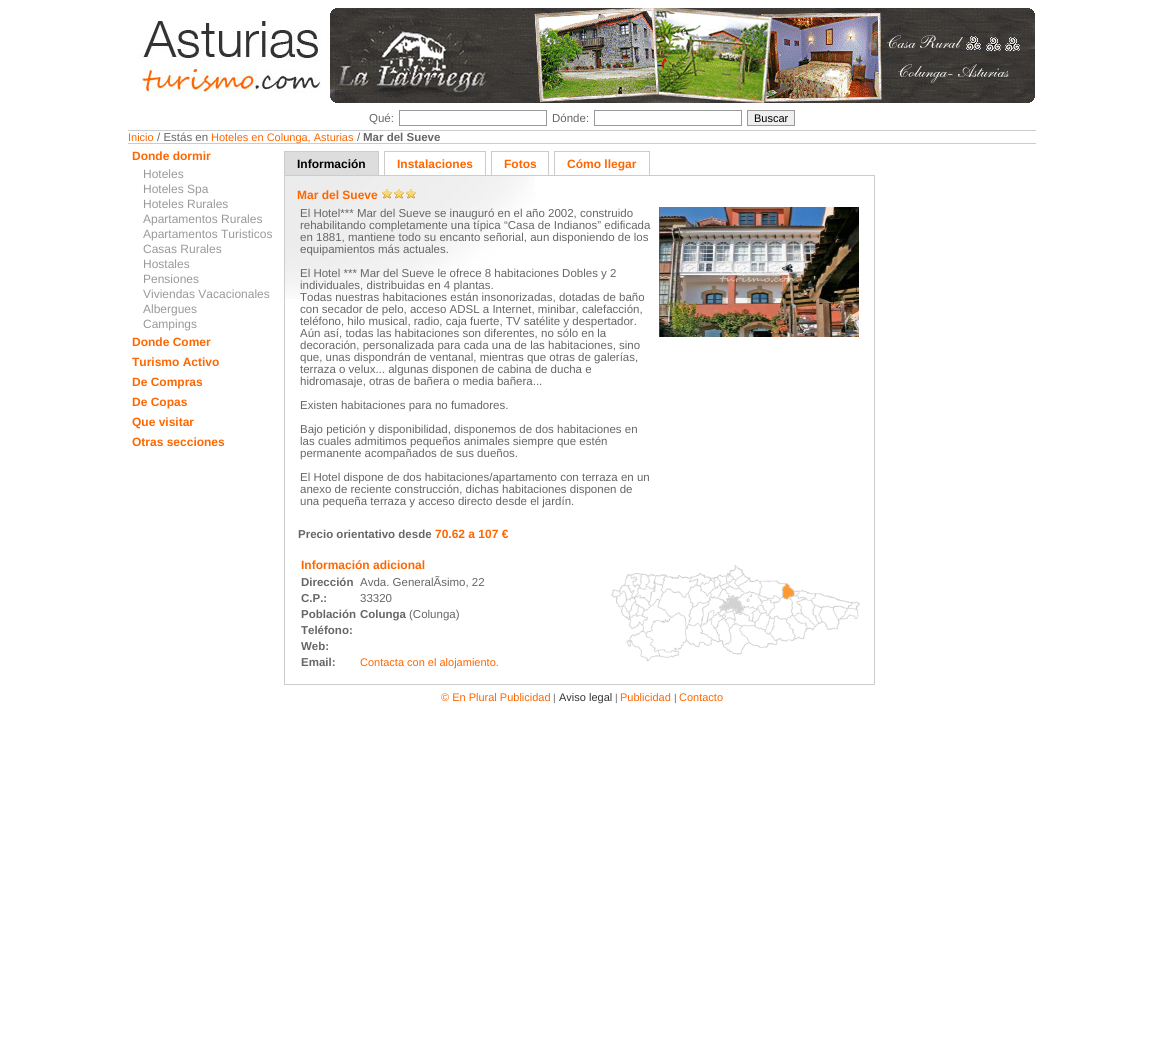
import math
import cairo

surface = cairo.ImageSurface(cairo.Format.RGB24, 1164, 1040)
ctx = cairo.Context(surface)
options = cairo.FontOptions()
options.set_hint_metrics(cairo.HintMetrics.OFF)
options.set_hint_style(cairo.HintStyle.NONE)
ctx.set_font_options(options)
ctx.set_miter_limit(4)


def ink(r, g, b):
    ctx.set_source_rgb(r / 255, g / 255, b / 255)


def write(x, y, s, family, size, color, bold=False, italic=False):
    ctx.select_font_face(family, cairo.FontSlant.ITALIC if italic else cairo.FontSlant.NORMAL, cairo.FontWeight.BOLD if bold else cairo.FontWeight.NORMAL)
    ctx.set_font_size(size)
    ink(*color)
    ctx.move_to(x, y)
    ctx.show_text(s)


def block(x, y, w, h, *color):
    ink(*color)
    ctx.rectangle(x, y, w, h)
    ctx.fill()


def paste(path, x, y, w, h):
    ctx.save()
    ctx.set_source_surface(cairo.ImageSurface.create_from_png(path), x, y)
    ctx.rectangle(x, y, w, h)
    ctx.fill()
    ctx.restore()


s1 = dict(family="Liberation Sans", size=11.5, color=(102, 102, 102))
s2 = dict(family="Liberation Sans", size=11, color=(0, 0, 0))
s3 = dict(family="Liberation Sans", size=11, color=(255, 102, 0))
s4 = dict(family="Liberation Sans", size=11.5, color=(102, 102, 102), bold=True)
s5 = dict(family="Liberation Sans", size=12, color=(255, 102, 0), bold=True)
s6 = dict(family="Liberation Sans", size=12, color=(153, 153, 153))
s7 = dict(family="Liberation Sans", size=12, color=(0, 0, 0), bold=True)
s8 = dict(family="Liberation Sans", size=10, color=(102, 102, 102))
s9 = dict(family="Liberation Sans", size=11, color=(51, 51, 51))

ink(255, 255, 255)
ctx.paint()
paste("pic1.png", 137, 21, 184, 72)
paste("pic2.png", 330, 8, 705, 95)
write(369, 122, "Qué:", **s1)
ctx.rectangle(399.5, 110.5, 147, 15)
ink(153, 153, 153)
ctx.set_line_width(1)
ctx.stroke()
write(552, 122, "Dónde:", **s1)
ctx.rectangle(594.5, 110.5, 147, 15)
ink(153, 153, 153)
ctx.stroke()
ink(239, 239, 239)
ctx.rectangle(747.5, 110.5, 47, 15)
ctx.fill_preserve()
ink(153, 153, 153)
ctx.stroke()
write(754, 122, "Buscar", **s2)
block(128, 130, 908, 1, 204, 204, 204)
block(128, 143, 908, 1, 204, 204, 204)
write(128, 141, "Inicio", **s3)
write(157, 141, "/ Estás en", **s1)
write(211, 141, "Hoteles en Colunga, Asturias", **s3)
write(357, 141, "/", **s1)
write(363, 141, "Mar del Sueve", **s4)
write(132, 160, "Donde dormir", **s5)
write(143, 178, "Hoteles", **s6)
write(143, 193, "Hoteles Spa", **s6)
write(143, 208, "Hoteles Rurales", **s6)
write(143, 223, "Apartamentos Rurales", **s6)
write(143, 238, "Apartamentos Turisticos", **s6)
write(143, 253, "Casas Rurales", **s6)
write(143, 268, "Hostales", **s6)
write(143, 283, "Pensiones", **s6)
write(143, 298, "Viviendas Vacacionales", **s6)
write(143, 313, "Albergues", **s6)
write(143, 328, "Campings", **s6)
write(132, 346, "Donde Comer", **s5)
write(132, 366, "Turismo Activo", **s5)
write(132, 386, "De Compras", **s5)
write(132, 406, "De Copas", **s5)
write(132, 426, "Que visitar", **s5)
write(132, 446, "Otras secciones", **s5)
block(285, 152, 93, 23, 221, 221, 221)
block(284, 151, 95, 1, 204, 204, 204)
block(378, 151, 1, 24, 204, 204, 204)
block(284, 151, 1, 24, 204, 204, 204)
write(297, 168, "Información", **s7)
block(384, 151, 102, 1, 204, 204, 204)
block(485, 151, 1, 24, 204, 204, 204)
block(384, 151, 1, 24, 204, 204, 204)
write(397, 168, "Instalaciones", **s5)
block(491, 151, 58, 1, 204, 204, 204)
block(548, 151, 1, 24, 204, 204, 204)
block(491, 151, 1, 24, 204, 204, 204)
write(504, 168, "Fotos", **s5)
block(554, 151, 96, 1, 204, 204, 204)
block(649, 151, 1, 24, 204, 204, 204)
block(554, 151, 1, 24, 204, 204, 204)
write(567, 168, "Cómo llegar", **s5)
paste("pic3.png", 285, 176, 250, 123)
ctx.rectangle(284.5, 175.5, 590, 509)
ink(204, 204, 204)
ctx.stroke()
write(297, 199, "Mar del Sueve", **s5)
paste("pic4.png", 381, 188, 36, 11)
write(300, 217, "El Hotel*** Mar del Sueve se inauguró en el año 2002, construido", **s1)
write(300, 229, "rehabilitando completamente una típica “Casa de Indianos” edificada", **s1)
write(300, 241, "en 1881, mantiene todo su encanto señorial, aun disponiendo de los", **s1)
write(300, 253, "equipamientos más actuales.", **s1)
write(300, 277, "El Hotel *** Mar del Sueve le ofrece 8 habitaciones Dobles y 2", **s1)
write(300, 289, "individuales, distribuidas en 4 plantas.", **s1)
write(300, 301, "Todas nuestras habitaciones están insonorizadas, dotadas de baño", **s1)
write(300, 313, "con secador de pelo, acceso ADSL a Internet, minibar, calefacción,", **s1)
write(300, 325, "teléfono, hilo musical, radio, caja fuerte, TV satélite y despertador.", **s1)
write(300, 337, "Aún así, todas las habitaciones son diferentes, no sólo en la", **s1)
write(300, 349, "decoración, personalizada para cada una de las habitaciones, sino", **s1)
write(300, 361, "que, unas dispondrán de ventanal, mientras que otras de galerías,", **s1)
write(300, 373, "terraza o velux... algunas disponen de cabina de ducha e", **s1)
write(300, 385, "hidromasaje, otras de bañera o media bañera...", **s1)
write(300, 409, "Existen habitaciones para no fumadores.", **s1)
write(300, 433, "Bajo petición y disponibilidad, disponemos de dos habitaciones en", **s1)
write(300, 445, "las cuales admitimos pequeños animales siempre que estén", **s1)
write(300, 457, "permanente acompañados de sus dueños.", **s1)
write(300, 481, "El Hotel dispone de dos habitaciones/apartamento con terraza en un", **s1)
write(300, 493, "anexo de reciente construcción, dichas habitaciones disponen de", **s1)
write(300, 505, "una pequeña terraza y acceso directo desde el jardín.", **s1)
paste("pic5.png", 659, 207, 200, 130)
write(298, 538, "Precio orientativo desde", **s4)
write(435, 538, "70.62 a 107 €", **s5)
write(301, 569, "Información adicional", **s5)
write(301, 586, "Dirección", **s4)
write(360, 586, "Avda. GeneralÃsimo, 22", **s1)
write(301, 602, "C.P.:", **s4)
write(360, 602, "33320", **s1)
write(301, 618, "Población", **s4)
write(360, 618, "Colunga", **s4)
write(409, 618, "(Colunga)", **s1)
write(301, 634, "Teléfono:", **s4)
write(301, 650, "Web:", **s4)
write(301, 666, "Email:", **s4)
write(360, 666, "Contacta con el alojamiento.", **s3)
paste("pic6.png", 611, 565, 249, 96)
write(441, 701, "© En Plural Publicidad", **s3)
write(553, 701, "|", **s8)
write(559, 701, "Aviso legal", **s9)
write(615, 701, "|", **s8)
write(620, 701, "Publicidad", **s3)
write(674, 701, "|", **s8)
write(679, 701, "Contacto", **s3)
surface.write_to_png("screenshot.png")
